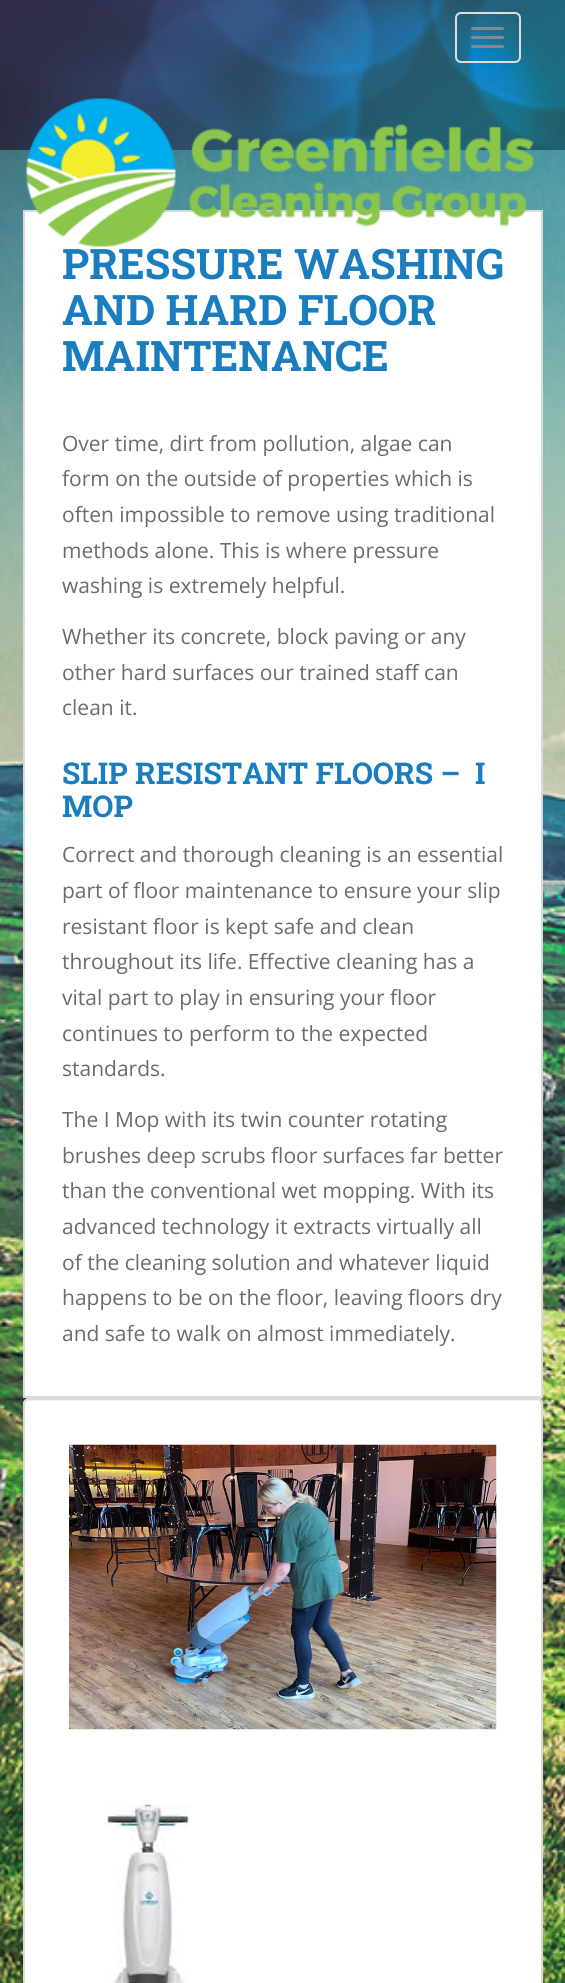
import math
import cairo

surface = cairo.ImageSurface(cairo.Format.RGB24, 565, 1983)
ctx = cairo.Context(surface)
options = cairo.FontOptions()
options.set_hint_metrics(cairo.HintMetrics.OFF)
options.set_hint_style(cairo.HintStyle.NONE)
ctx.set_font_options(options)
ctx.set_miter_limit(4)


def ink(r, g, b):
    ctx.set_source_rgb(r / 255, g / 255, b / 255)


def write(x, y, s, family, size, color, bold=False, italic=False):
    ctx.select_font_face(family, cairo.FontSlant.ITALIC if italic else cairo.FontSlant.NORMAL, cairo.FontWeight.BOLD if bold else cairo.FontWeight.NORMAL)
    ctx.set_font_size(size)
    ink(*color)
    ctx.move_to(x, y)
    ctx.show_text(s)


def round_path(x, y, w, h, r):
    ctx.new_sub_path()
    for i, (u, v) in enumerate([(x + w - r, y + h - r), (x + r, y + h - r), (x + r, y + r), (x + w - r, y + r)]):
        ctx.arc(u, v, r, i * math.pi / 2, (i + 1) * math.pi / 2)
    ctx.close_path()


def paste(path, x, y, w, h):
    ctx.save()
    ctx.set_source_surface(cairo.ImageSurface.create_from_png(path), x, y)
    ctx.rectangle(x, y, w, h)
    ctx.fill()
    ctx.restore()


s1 = dict(family="Roboto Slab", size=42, color=(26, 125, 192), bold=True)
s2 = dict(family="Open Sans", size=21, color=(107, 107, 107))
s3 = dict(family="Roboto Slab", size=30, color=(26, 125, 192), bold=True)

ink(255, 255, 255)
ctx.paint()
paste("pic1.png", 0, 0, 565, 150)
round_path(456, 13, 64, 49, 5)
ink(221, 221, 221)
ctx.stroke()
ink(136, 136, 136)
round_path(471, 27, 33, 3, 1.5)
ctx.fill()
round_path(471, 36, 33, 3, 1.5)
ctx.fill()
round_path(471, 45, 33, 3, 1.5)
ctx.fill()
paste("pic3.png", 0, 150, 565, 1833)
ink(255, 255, 255)
ctx.rectangle(24, 211, 518, 1186)
ctx.fill_preserve()
ink(218, 218, 218)
ctx.stroke()
paste("pic2.png", 26, 98, 508, 149)
write(62, 279, "PRESSURE WASHING", **s1)
write(62, 325, "AND HARD FLOOR", **s1)
write(62, 371, "MAINTENANCE", **s1)
write(62, 451, "Over time, dirt from pollution, algae can", **s2)
write(62, 486, "form on the outside of properties which is", **s2)
write(62, 522, "often impossible to remove using traditional", **s2)
write(62, 558, "methods alone. This is where pressure", **s2)
write(62, 593, "washing is extremely helpful.", **s2)
write(62, 644, "Whether its concrete, block paving or any", **s2)
write(62, 680, "other hard surfaces our trained staff can", **s2)
write(62, 715, "clean it.", **s2)
write(62, 784, "SLIP RESISTANT FLOORS –  I", **s3)
write(62, 817, "MOP", **s3)
write(62, 862, "Correct and thorough cleaning is an essential", **s2)
write(62, 898, "part of floor maintenance to ensure your slip", **s2)
write(62, 934, "resistant floor is kept safe and clean", **s2)
write(62, 969, "throughout its life. Effective cleaning has a", **s2)
write(62, 1005, "vital part to play in ensuring your floor", **s2)
write(62, 1041, "continues to perform to the expected", **s2)
write(62, 1076, "standards.", **s2)
write(62, 1127, "The I Mop with its twin counter rotating", **s2)
write(62, 1163, "brushes deep scrubs floor surfaces far better", **s2)
write(62, 1198, "than the conventional wet mopping. With its", **s2)
write(62, 1234, "advanced technology it extracts virtually all", **s2)
write(62, 1270, "of the cleaning solution and whatever liquid", **s2)
write(62, 1305, "happens to be on the floor, leaving floors dry", **s2)
write(62, 1341, "and safe to walk on almost immediately.", **s2)
ink(255, 255, 255)
round_path(23, 1398, 520, 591, 6)
ctx.fill()
ink(242, 242, 242)
ctx.new_path()
ctx.move_to(28, 1401)
ctx.line_to(537, 1401)
ctx.curve_to(539, 1401, 542, 1403, 542, 1406)
ctx.line_to(542, 1405)
ctx.curve_to(542, 1402, 540, 1400, 537, 1400)
ctx.line_to(29, 1400)
ctx.curve_to(26, 1400, 24, 1402, 24, 1405)
ctx.line_to(24, 1406)
ctx.curve_to(24, 1403, 26, 1401, 28, 1401)
ctx.close_path()
ctx.fill()
round_path(24, 1399, 518, 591, 5)
ink(218, 218, 218)
ctx.stroke()
paste("pic4.png", 69, 1444, 428, 286)
paste("pic5.png", 105, 1804, 85, 179)
surface.write_to_png("screenshot.png")
